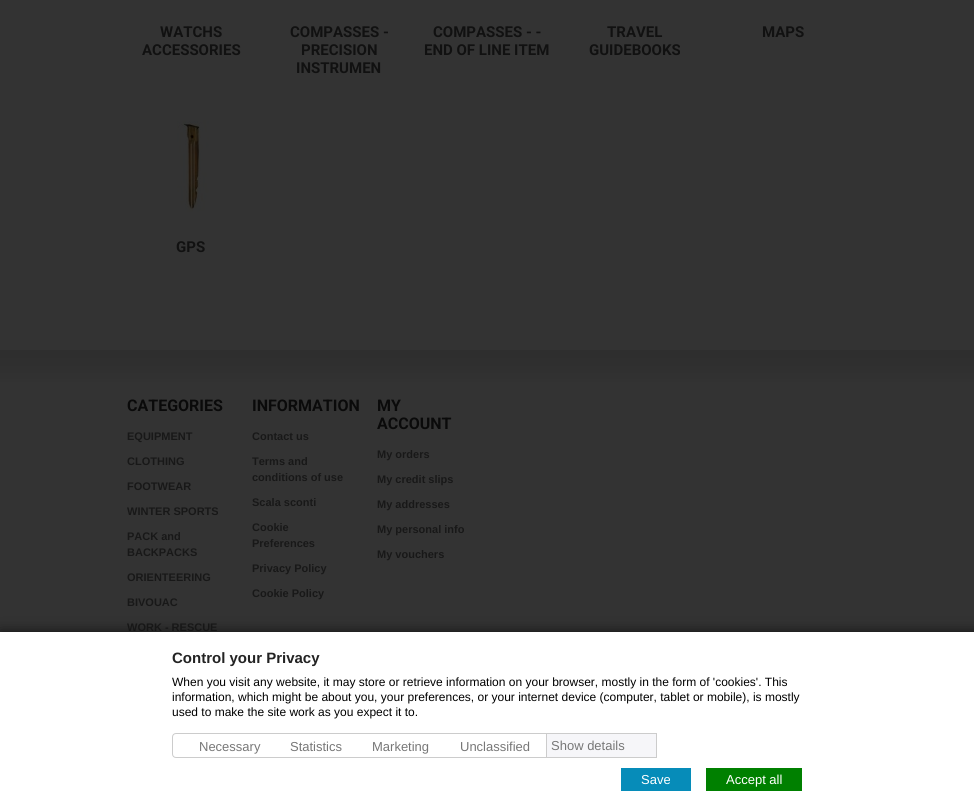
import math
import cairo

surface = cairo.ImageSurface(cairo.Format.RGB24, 974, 805)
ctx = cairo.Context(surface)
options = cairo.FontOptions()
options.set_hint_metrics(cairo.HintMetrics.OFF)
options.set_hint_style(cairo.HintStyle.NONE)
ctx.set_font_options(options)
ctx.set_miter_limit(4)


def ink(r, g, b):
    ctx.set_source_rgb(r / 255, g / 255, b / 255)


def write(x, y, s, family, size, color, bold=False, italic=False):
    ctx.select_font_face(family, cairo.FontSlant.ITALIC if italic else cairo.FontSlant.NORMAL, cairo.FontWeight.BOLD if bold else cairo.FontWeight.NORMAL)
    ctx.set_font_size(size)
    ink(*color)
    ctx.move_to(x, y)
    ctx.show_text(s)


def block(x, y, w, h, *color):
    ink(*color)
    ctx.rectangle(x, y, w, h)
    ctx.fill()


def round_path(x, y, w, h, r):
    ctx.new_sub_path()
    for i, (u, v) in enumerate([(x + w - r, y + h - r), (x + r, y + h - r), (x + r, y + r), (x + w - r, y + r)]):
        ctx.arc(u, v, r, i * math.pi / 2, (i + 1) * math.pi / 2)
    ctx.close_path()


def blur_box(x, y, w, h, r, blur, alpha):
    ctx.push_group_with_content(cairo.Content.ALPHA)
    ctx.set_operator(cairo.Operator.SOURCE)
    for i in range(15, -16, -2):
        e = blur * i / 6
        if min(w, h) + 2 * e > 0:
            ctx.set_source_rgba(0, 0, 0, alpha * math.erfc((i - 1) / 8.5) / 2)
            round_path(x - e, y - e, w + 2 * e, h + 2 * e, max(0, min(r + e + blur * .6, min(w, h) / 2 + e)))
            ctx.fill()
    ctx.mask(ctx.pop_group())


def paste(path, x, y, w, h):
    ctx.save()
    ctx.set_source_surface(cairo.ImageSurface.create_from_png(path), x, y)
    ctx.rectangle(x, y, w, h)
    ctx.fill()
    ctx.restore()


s1 = dict(family="Roboto", size=15, color=(17, 17, 17), bold=True)
s2 = dict(family="Roboto", size=16, color=(10, 10, 10), bold=True)
s3 = dict(family="Liberation Sans", size=11, color=(24, 24, 24), bold=True)
s4 = dict(family="Liberation Sans", size=15, color=(35, 35, 35), bold=True)
s5 = dict(family="Liberation Sans", size=12, color=(0, 0, 0))
s6 = dict(family="Liberation Sans", size=13, color=(119, 119, 119))
s7 = dict(family="Liberation Sans", size=13, color=(255, 255, 255))

ink(51, 51, 51)
ctx.paint()
write(160, 37, "WATCHS", **s1)
write(142, 55, "ACCESSORIES", **s1)
write(290, 37, "COMPASSES -", **s1)
write(301, 55, "PRECISION", **s1)
write(296, 73, "INSTRUMEN", **s1)
write(433, 37, "COMPASSES - -", **s1)
write(424, 55, "END OF LINE ITEM", **s1)
write(607, 37, "TRAVEL", **s1)
write(589, 55, "GUIDEBOOKS", **s1)
write(762, 37, "MAPS", **s1)
paste("pic1.png", 177, 120, 32, 92)
write(176, 252, "GPS", **s1)
paste("pic2.png", 0, 350, 974, 32)
write(127, 411, "CATEGORIES", **s2)
write(127, 440, "EQUIPMENT", **s3)
write(127, 465, "CLOTHING", **s3)
write(127, 490, "FOOTWEAR", **s3)
write(127, 515, "WINTER SPORTS", **s3)
write(127, 540, "PACK and", **s3)
write(127, 556, "BACKPACKS", **s3)
write(127, 581, "ORIENTEERING", **s3)
write(127, 606, "BIVOUAC", **s3)
write(127, 631, "WORK - RESCUE", **s3)
write(252, 411, "INFORMATION", **s2)
write(252, 440, "Contact us", **s3)
write(252, 465, "Terms and", **s3)
write(252, 481, "conditions of use", **s3)
write(252, 506, "Scala sconti", **s3)
write(252, 531, "Cookie", **s3)
write(252, 547, "Preferences", **s3)
write(252, 572, "Privacy Policy", **s3)
write(252, 597, "Cookie Policy", **s3)
write(377, 411, "MY", **s2)
write(377, 429, "ACCOUNT", **s2)
write(377, 458, "My orders", **s3)
write(377, 483, "My credit slips", **s3)
write(377, 508, "My addresses", **s3)
write(377, 533, "My personal info", **s3)
write(377, 558, "My vouchers", **s3)
ink(18, 18, 18)
blur_box(0, 632, 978, 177, 0, 7, 1)
block(0, 632, 974, 173, 255, 255, 255)
write(172, 663, "Control your Privacy", **s4)
write(172, 686, "When you visit any website, it may store or retrieve information on your browser, mostly in the form of 'cookies'. This", **s5)
write(172, 701, "information, which might be about you, your preferences, or your internet device (computer, tablet or mobile), is mostly", **s5)
write(172, 716, "used to make the site work as you expect it to.", **s5)
ctx.new_path()
ctx.move_to(176, 733.5)
ctx.line_to(546.5, 733.5)
ctx.line_to(546.5, 757.5)
ctx.line_to(176, 757.5)
ctx.curve_to(174, 757.5, 172.5, 756, 172.5, 754)
ctx.line_to(172.5, 737)
ctx.curve_to(172.5, 735, 174, 733.5, 176, 733.5)
ctx.close_path()
ink(204, 204, 204)
ctx.set_line_width(1)
ctx.stroke()
write(199, 751, "Necessary", **s6)
write(290, 751, "Statistics", **s6)
write(372, 751, "Marketing", **s6)
write(460, 751, "Unclassified", **s6)
block(547, 734, 109, 23, 246, 246, 249)
block(547, 733, 110, 1, 204, 204, 204)
block(656, 733, 1, 25, 204, 204, 204)
block(547, 757, 110, 1, 204, 204, 204)
write(551, 750, "Show details", **s6)
block(621, 768, 70, 23, 6, 140, 185)
write(641, 784, "Save", **s7)
block(706, 768, 96, 23, 0, 128, 0)
write(726, 784, "Accept all", **s7)
surface.write_to_png("screenshot.png")
